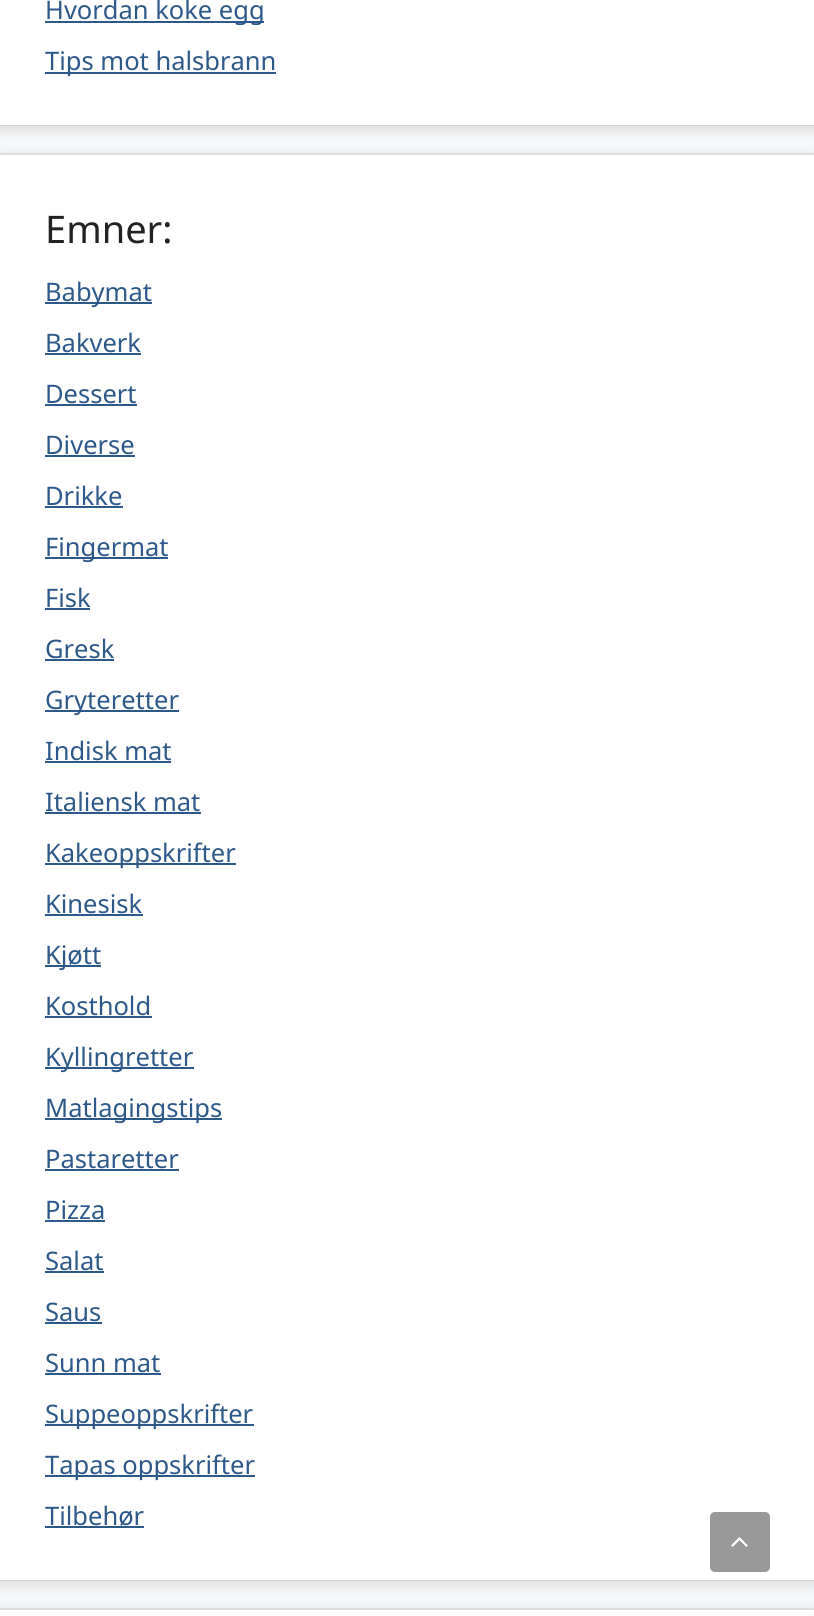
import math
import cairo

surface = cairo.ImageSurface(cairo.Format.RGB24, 814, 1616)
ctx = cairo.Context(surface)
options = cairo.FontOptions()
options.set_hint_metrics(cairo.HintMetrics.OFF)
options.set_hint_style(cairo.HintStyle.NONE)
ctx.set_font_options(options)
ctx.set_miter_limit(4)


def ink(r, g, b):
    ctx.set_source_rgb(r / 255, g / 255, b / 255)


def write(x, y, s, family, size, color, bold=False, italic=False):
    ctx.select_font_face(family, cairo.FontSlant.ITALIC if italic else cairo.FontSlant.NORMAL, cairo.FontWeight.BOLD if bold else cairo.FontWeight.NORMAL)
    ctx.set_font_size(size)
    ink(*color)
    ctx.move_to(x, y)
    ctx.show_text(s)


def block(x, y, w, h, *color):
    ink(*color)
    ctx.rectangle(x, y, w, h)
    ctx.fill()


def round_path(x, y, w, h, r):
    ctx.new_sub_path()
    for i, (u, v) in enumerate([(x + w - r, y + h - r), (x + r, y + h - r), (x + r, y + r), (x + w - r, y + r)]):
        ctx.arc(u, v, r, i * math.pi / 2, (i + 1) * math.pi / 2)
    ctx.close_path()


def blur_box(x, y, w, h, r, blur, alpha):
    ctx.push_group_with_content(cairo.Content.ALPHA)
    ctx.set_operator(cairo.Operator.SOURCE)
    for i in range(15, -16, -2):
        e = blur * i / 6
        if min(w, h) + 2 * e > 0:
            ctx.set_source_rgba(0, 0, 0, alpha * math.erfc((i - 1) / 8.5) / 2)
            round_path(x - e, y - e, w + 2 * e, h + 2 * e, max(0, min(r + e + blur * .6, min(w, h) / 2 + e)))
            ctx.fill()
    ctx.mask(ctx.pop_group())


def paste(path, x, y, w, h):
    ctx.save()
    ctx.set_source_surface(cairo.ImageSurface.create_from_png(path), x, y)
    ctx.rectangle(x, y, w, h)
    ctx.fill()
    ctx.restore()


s1 = dict(family="Noto Sans", size=25.5, color=(45, 89, 138))
s2 = dict(family="Noto Sans", size=38, color=(34, 34, 34))

ink(247, 248, 249)
ctx.paint()
ctx.rectangle(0, -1, 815, 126)
ink(232, 233, 234)
ctx.stroke()
ink(0, 0, 0)
blur_box(0, -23, 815, 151, 0, 7.5, 0.16)
block(0, 0, 814, 125, 255, 255, 255)
block(45, 21, 219, 2, 45, 89, 138)
write(45, 19, "Hvordan koke egg", **s1)
block(45, 72, 231, 2, 45, 89, 138)
write(45, 70, "Tips mot halsbrann", **s1)
ctx.rectangle(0, 154, 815, 1426)
ink(232, 233, 234)
ctx.stroke()
ink(0, 0, 0)
blur_box(0, 158, 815, 1425, 0, 7.5, 0.16)
block(0, 155, 814, 1425, 255, 255, 255)
write(45, 243, "Emner:", **s2)
block(45, 302, 107, 2, 45, 89, 138)
write(45, 301, "Babymat", **s1)
write(45, 352, "Bakverk", **s1)
block(45, 353, 96, 2, 45, 89, 138)
write(45, 403, "Dessert", **s1)
block(45, 404, 92, 2, 45, 89, 138)
write(45, 454, "Diverse", **s1)
block(45, 455, 90, 2, 45, 89, 138)
write(45, 505, "Drikke", **s1)
block(45, 506, 78, 2, 45, 89, 138)
block(45, 557, 123, 2, 45, 89, 138)
write(45, 556, "Fingermat", **s1)
write(45, 607, "Fisk", **s1)
block(45, 608, 45, 2, 45, 89, 138)
write(45, 658, "Gresk", **s1)
block(45, 659, 69, 2, 45, 89, 138)
block(45, 710, 134, 2, 45, 89, 138)
write(45, 709, "Gryteretter", **s1)
write(45, 760, "Indisk mat", **s1)
block(45, 761, 126, 2, 45, 89, 138)
write(45, 811, "Italiensk mat", **s1)
block(45, 812, 156, 2, 45, 89, 138)
block(45, 863, 191, 2, 45, 89, 138)
write(45, 862, "Kakeoppskrifter", **s1)
write(45, 913, "Kinesisk", **s1)
block(45, 914, 98, 2, 45, 89, 138)
block(45, 965, 56, 2, 45, 89, 138)
write(45, 964, "Kjøtt", **s1)
write(45, 1015, "Kosthold", **s1)
block(45, 1016, 107, 2, 45, 89, 138)
block(45, 1067, 149, 2, 45, 89, 138)
write(45, 1066, "Kyllingretter", **s1)
block(45, 1118, 177, 2, 45, 89, 138)
write(45, 1117, "Matlagingstips", **s1)
write(45, 1168, "Pastaretter", **s1)
block(45, 1169, 134, 2, 45, 89, 138)
write(45, 1219, "Pizza", **s1)
block(45, 1220, 60, 2, 45, 89, 138)
write(45, 1270, "Salat", **s1)
block(45, 1271, 59, 2, 45, 89, 138)
write(45, 1321, "Saus", **s1)
block(45, 1322, 57, 2, 45, 89, 138)
write(45, 1372, "Sunn mat", **s1)
block(45, 1373, 116, 2, 45, 89, 138)
block(45, 1424, 209, 2, 45, 89, 138)
write(45, 1423, "Suppeoppskrifter", **s1)
block(45, 1475, 210, 2, 45, 89, 138)
write(45, 1474, "Tapas oppskrifter", **s1)
write(45, 1525, "Tilbehør", **s1)
block(45, 1526, 99, 2, 45, 89, 138)
ctx.rectangle(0, 1609, 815, 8)
ink(232, 233, 234)
ctx.stroke()
ink(0, 0, 0)
blur_box(0, 1613, 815, 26, 0, 7.5, 0.16)
block(0, 1610, 814, 6, 255, 255, 255)
ink(153, 153, 153)
round_path(710, 1512, 60, 60, 5)
ctx.fill()
paste("pic1.png", 731, 1537, 17, 10)
surface.write_to_png("screenshot.png")
